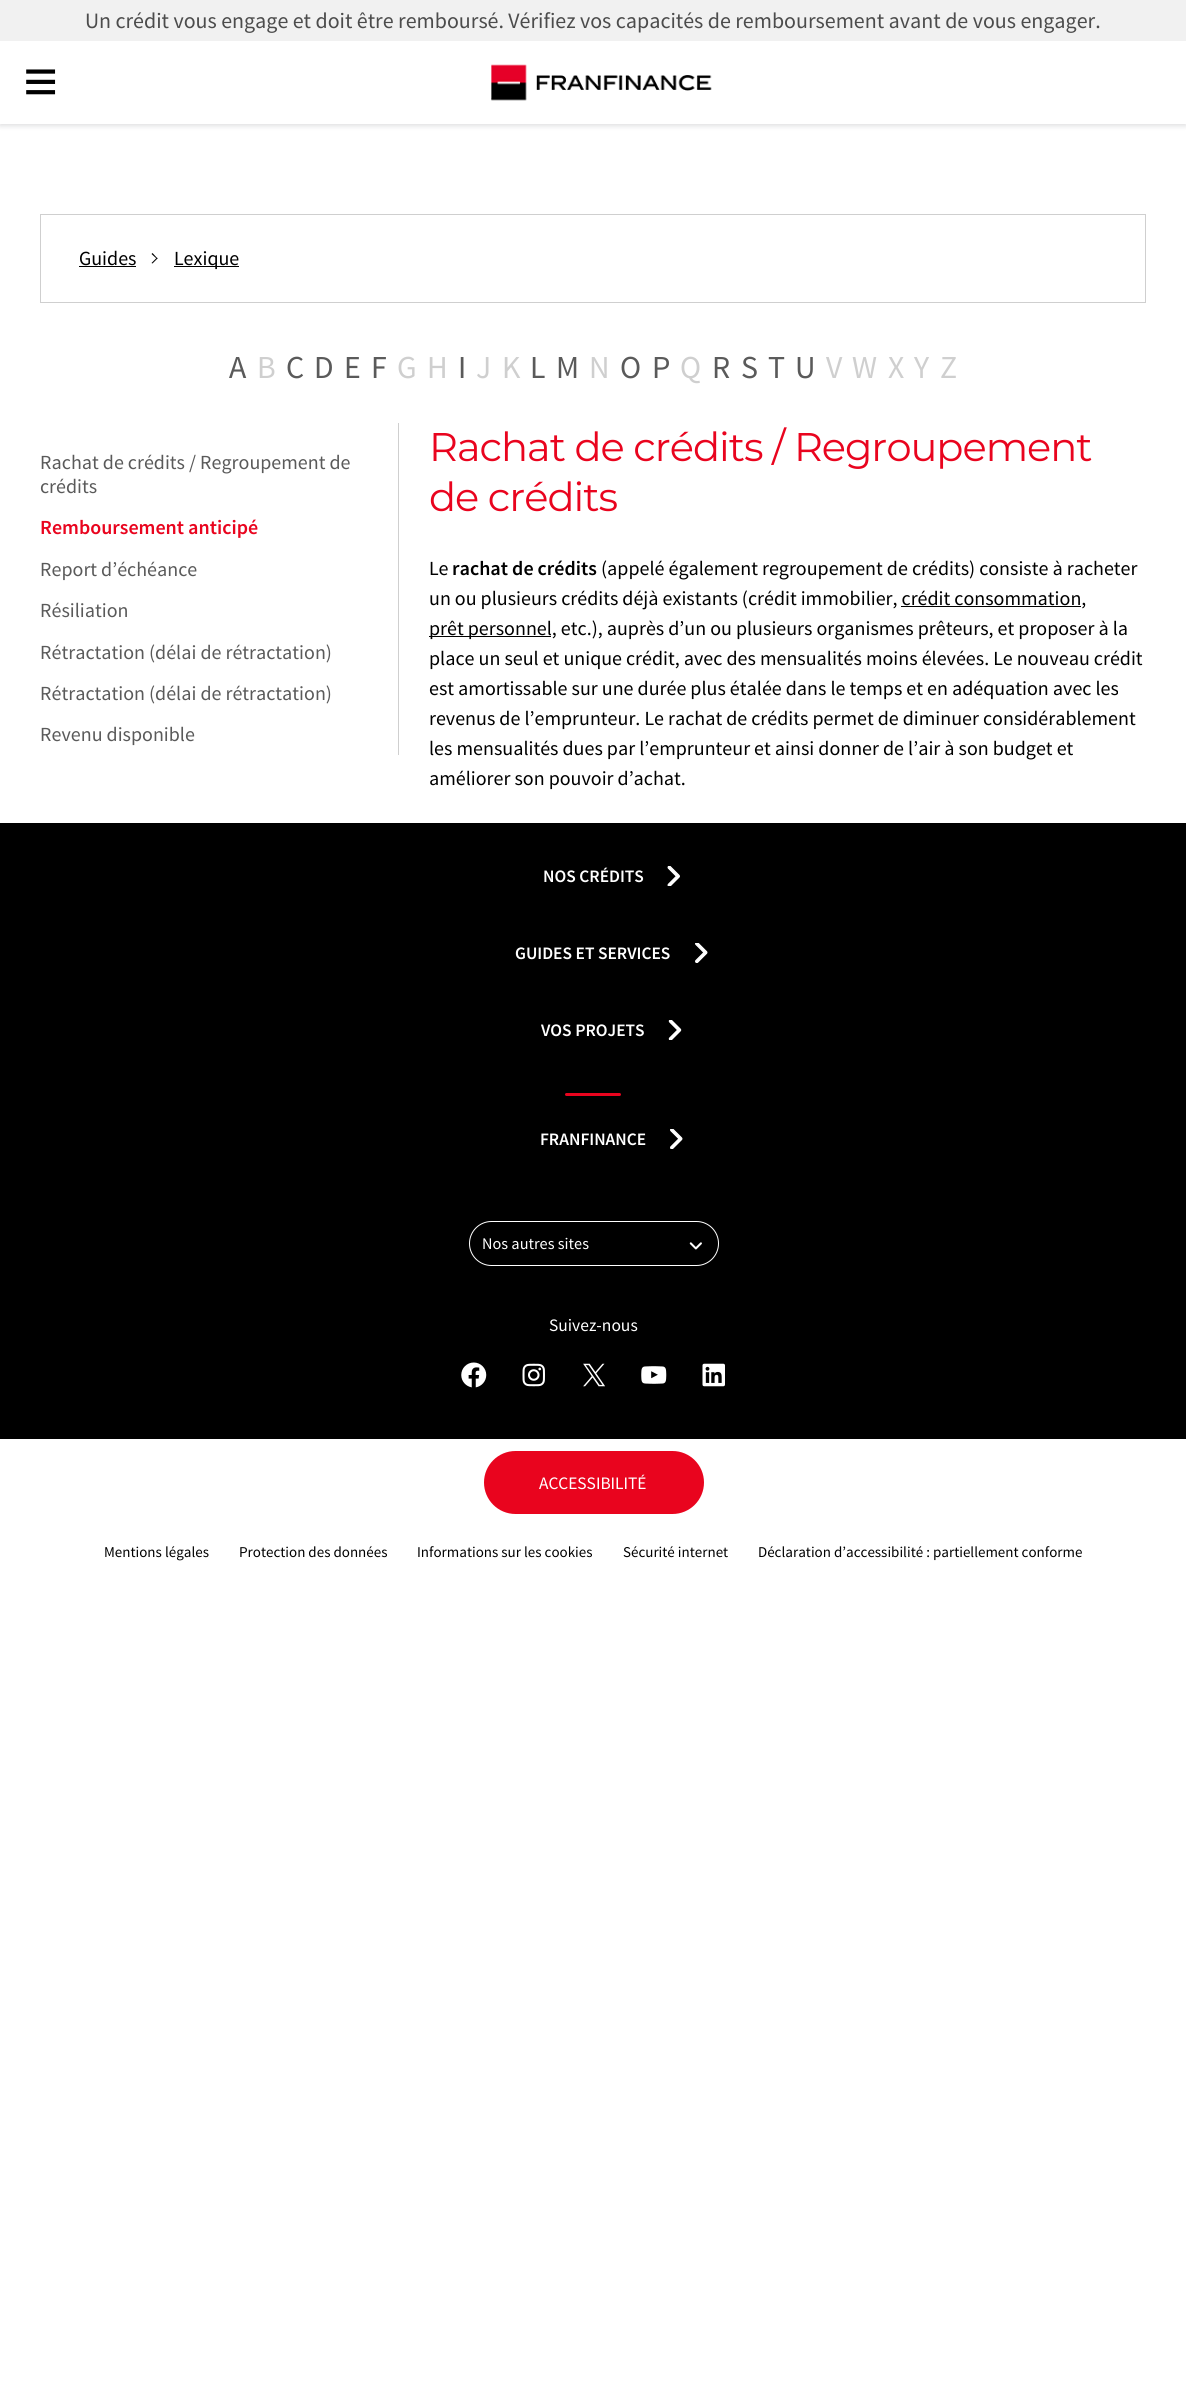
import math
import cairo

surface = cairo.ImageSurface(cairo.Format.RGB24, 1186, 2392)
ctx = cairo.Context(surface)
options = cairo.FontOptions()
options.set_hint_metrics(cairo.HintMetrics.OFF)
options.set_hint_style(cairo.HintStyle.NONE)
ctx.set_font_options(options)
ctx.set_miter_limit(4)


def ink(r, g, b):
    ctx.set_source_rgb(r / 255, g / 255, b / 255)


def write(x, y, s, family, size, color, bold=False, italic=False):
    ctx.select_font_face(family, cairo.FontSlant.ITALIC if italic else cairo.FontSlant.NORMAL, cairo.FontWeight.BOLD if bold else cairo.FontWeight.NORMAL)
    ctx.set_font_size(size)
    ink(*color)
    ctx.move_to(x, y)
    ctx.show_text(s)


def write_spaced(x, y, s, letter, word):
    ctx.move_to(x, y)
    for ch in s:
        ctx.show_text(ch)
        ctx.rel_move_to(letter + word * (ch == ' '), 0)


def block(x, y, w, h, *color):
    ink(*color)
    ctx.rectangle(x, y, w, h)
    ctx.fill()


def round_path(x, y, w, h, r):
    ctx.new_sub_path()
    for i, (u, v) in enumerate([(x + w - r, y + h - r), (x + r, y + h - r), (x + r, y + r), (x + w - r, y + r)]):
        ctx.arc(u, v, r, i * math.pi / 2, (i + 1) * math.pi / 2)
    ctx.close_path()


def blur_box(x, y, w, h, r, blur, alpha):
    ctx.push_group_with_content(cairo.Content.ALPHA)
    ctx.set_operator(cairo.Operator.SOURCE)
    for i in range(15, -16, -2):
        e = blur * i / 6
        if min(w, h) + 2 * e > 0:
            ctx.set_source_rgba(0, 0, 0, alpha * math.erfc((i - 1) / 8.5) / 2)
            round_path(x - e, y - e, w + 2 * e, h + 2 * e, max(0, min(r + e + blur * .6, min(w, h) / 2 + e)))
            ctx.fill()
    ctx.mask(ctx.pop_group())


def paste(path, x, y, w, h):
    ctx.save()
    ctx.set_source_surface(cairo.ImageSurface.create_from_png(path), x, y)
    ctx.rectangle(x, y, w, h)
    ctx.fill()
    ctx.restore()


s1 = dict(family="Source Sans Pro", size=21.95, color=(76, 76, 76))
s2 = dict(family="Source Sans Pro", size=20, color=(0, 0, 0))
s3 = dict(family="Source Sans Pro", size=32, color=(90, 90, 90))
s4 = dict(family="Source Sans Pro", size=32, color=(207, 207, 207))
s5 = dict(family="Source Sans Pro", size=20, color=(90, 90, 90))
s6 = dict(family="Source Sans Pro SemiBold", size=20, color=(233, 4, 30))
s7 = dict(family="Source Sans Pro SemiBold", size=20, color=(0, 0, 0))
s8 = dict(family="Source Sans Pro SemiBold", size=17.5, color=(255, 255, 255))
s9 = dict(family="Source Sans Pro", size=16.25, color=(255, 255, 255))
s10 = dict(family="Source Sans Pro", size=17.5, color=(255, 255, 255))
s11 = dict(family="Source Sans Pro", size=15, color=(0, 0, 0))

ink(255, 255, 255)
ctx.paint()
ink(52, 53, 61)
blur_box(0, 3, 1186, 123, 0, 2.5, 0.16)
block(0, 41, 1186, 83, 255, 255, 255)
block(0, 0, 1186, 41, 241, 241, 241)
write(85, 28, "Un crédit vous engage et doit être remboursé. Vérifiez vos capacités de remboursement avant de vous engager.", **s1)
paste("pic1.png", 26, 69, 30, 26)
paste("pic2.png", 491, 64, 221, 37)
ctx.rectangle(40.5, 214.5, 1105, 88)
ink(207, 207, 207)
ctx.set_line_width(1)
ctx.stroke()
write(79, 265, "Guides", **s2)
block(79, 266, 57, 1, 0, 0, 0)
ctx.new_path()
ctx.move_to(157.5, 258.5)
ctx.line_to(152.5, 263.5)
ctx.line_to(151.5, 263)
ctx.line_to(157, 257.5)
ctx.close_path()
ctx.fill()
ctx.new_path()
ctx.move_to(157.5, 258.5)
ctx.line_to(157, 259)
ctx.line_to(151.5, 254)
ctx.line_to(152.5, 253)
ctx.close_path()
ctx.fill()
block(174, 266, 65, 1, 0, 0, 0)
write(174, 265, "Lexique", **s2)
write(229, 378, "A", **s3)
write(257, 378, "B", **s4)
write(286, 378, "C", **s3)
write(314, 378, "D", **s3)
write(344, 378, "E", **s3)
write(371, 378, "F", **s3)
write(397, 378, "G", **s4)
write(427, 378, "H", **s4)
write(458, 378, "I", **s3)
write(476, 378, "J", **s4)
write(502, 378, "K", **s4)
write(530, 378, "L", **s3)
write(556, 378, "M", **s3)
write(589, 378, "N", **s4)
write(620, 378, "O", **s3)
write(652, 378, "P", **s3)
write(680, 378, "Q", **s4)
write(712, 378, "R", **s3)
write(741, 378, "S", **s3)
write(768, 378, "T", **s3)
write(795, 378, "U", **s3)
write(826, 378, "V", **s4)
write(852, 378, "W", **s4)
write(888, 378, "X", **s4)
write(914, 378, "Y", **s4)
write(940, 378, "Z", **s4)
block(398, 423, 1, 332, 207, 207, 207)
write(40, 469, "Rachat de crédits / Regroupement de", **s5)
write(40, 493, "crédits", **s5)
write(40, 534, "Remboursement anticipé", **s6)
write(40, 576, "Report d’échéance", **s5)
write(40, 617, "Résiliation", **s5)
write(40, 659, "Rétractation (délai de rétractation)", **s5)
write(40, 700, "Rétractation (délai de rétractation)", **s5)
write(40, 741, "Revenu disponible", **s5)
ctx.select_font_face("Montserrat")
ctx.set_font_size(40)
ink(233, 4, 30)
write_spaced(429, 461, "Rachat de crédits / Regroupement", -1, 0)
write_spaced(429, 511, "de crédits", -1, 0)
write(429, 575, "Le", **s2)
write(452, 575, "rachat de crédits", **s7)
write(601, 575, "(appelé également regroupement de crédits) consiste à racheter", **s2)
write(429, 605, "un ou plusieurs crédits déjà existants (crédit immobilier, crédit consommation,", **s2)
block(901, 606, 180, 1, 0, 0, 0)
block(429, 636, 122, 1, 0, 0, 0)
write(429, 635, "prêt personnel, etc.), auprès d’un ou plusieurs organismes prêteurs, et proposer à la", **s2)
write(429, 665, "place un seul et unique crédit, avec des mensualités moins élevées. Le nouveau crédit", **s2)
write(429, 695, "est amortissable sur une durée plus étalée dans le temps et en adéquation avec les", **s2)
write(429, 725, "revenus de l’emprunteur. Le rachat de crédits permet de diminuer considérablement", **s2)
write(429, 755, "les mensualités dues par l’emprunteur et ainsi donner de l’air à son budget et", **s2)
write(429, 785, "améliorer son pouvoir d’achat.", **s2)
block(0, 823, 1186, 616, 0, 0, 0)
write(543, 882, "NOS CRÉDITS", **s8)
paste("pic3.png", 667, 866, 13, 20)
write(515, 959, "GUIDES ET SERVICES", **s8)
paste("pic4.png", 695, 943, 13, 20)
write(541, 1036, "VOS PROJETS", **s8)
paste("pic5.png", 668, 1020, 14, 20)
ink(233, 4, 30)
round_path(565, 1093, 56, 3, 1.5)
ctx.fill()
write(540, 1145, "FRANFINANCE", **s8)
paste("pic6.png", 670, 1129, 13, 20)
round_path(469.5, 1221.5, 249, 44, 22)
ctx.stroke()
write(482, 1249, "Nos autres sites", **s9)
paste("pic7.png", 689, 1242, 13, 8)
write(549, 1331, "Suivez-nous", **s10)
paste("pic8.png", 461, 1362, 26, 26)
paste("pic9.png", 522, 1363, 23, 24)
paste("pic10.png", 583, 1363, 22, 24)
paste("pic11.png", 641, 1366, 26, 18)
paste("pic12.png", 702, 1363, 23, 24)
ink(233, 4, 30)
round_path(484, 1451, 220, 63, 31.5)
ctx.fill()
write(539, 1489, "ACCESSIBILITÉ", **s10)
write(104, 1557, "Mentions légales", **s11)
write(239, 1557, "Protection des données", **s11)
write(417, 1557, "Informations sur les cookies", **s11)
write(623, 1557, "Sécurité internet", **s11)
write(758, 1557, "Déclaration d’accessibilité : partiellement conforme", **s11)
surface.write_to_png("screenshot.png")
